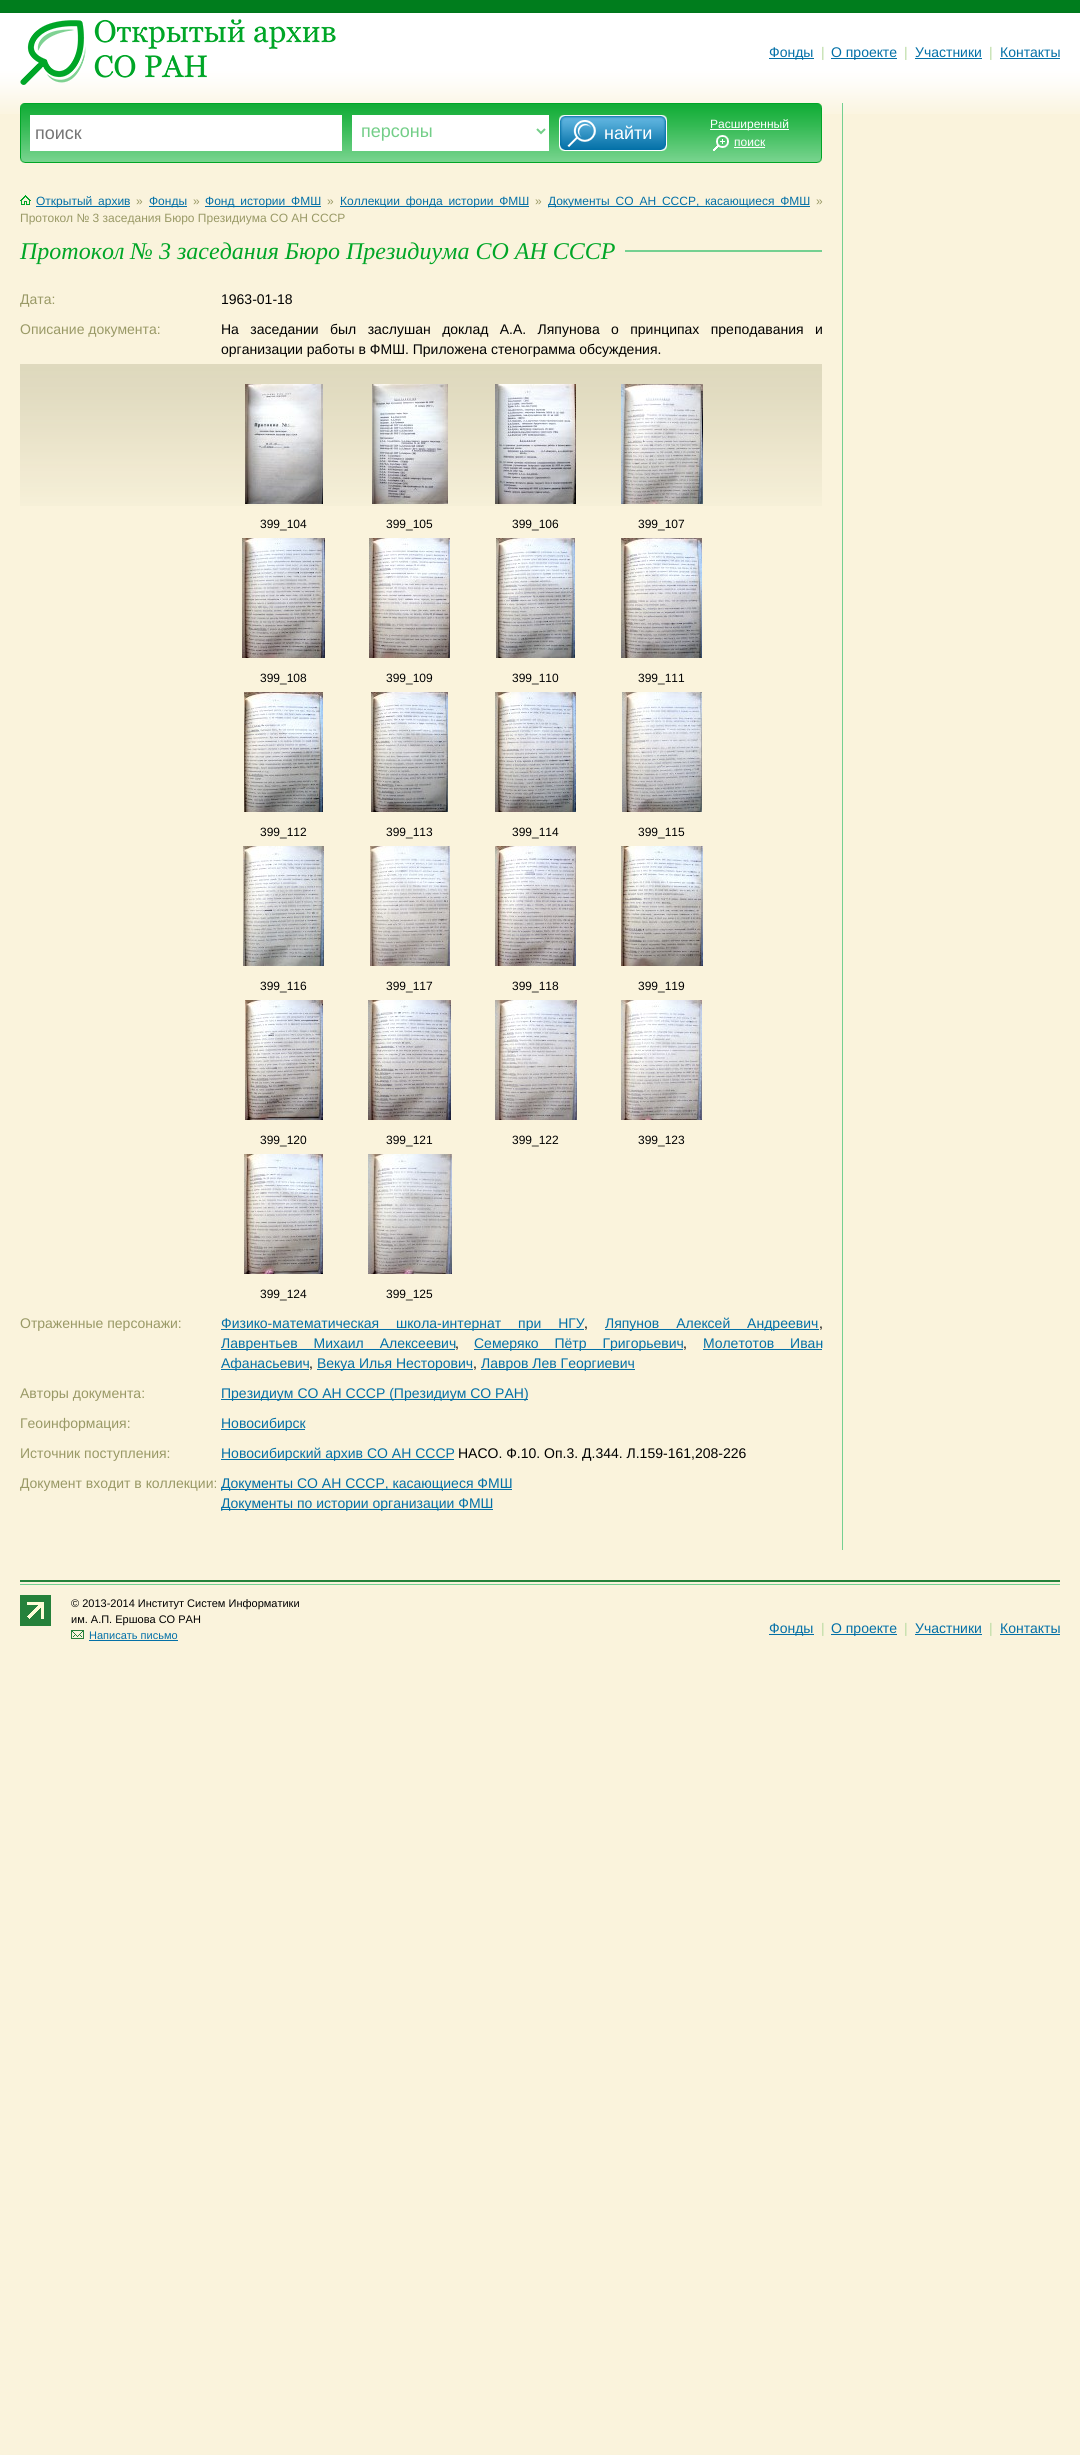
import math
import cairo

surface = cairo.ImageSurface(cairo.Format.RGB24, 1080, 2455)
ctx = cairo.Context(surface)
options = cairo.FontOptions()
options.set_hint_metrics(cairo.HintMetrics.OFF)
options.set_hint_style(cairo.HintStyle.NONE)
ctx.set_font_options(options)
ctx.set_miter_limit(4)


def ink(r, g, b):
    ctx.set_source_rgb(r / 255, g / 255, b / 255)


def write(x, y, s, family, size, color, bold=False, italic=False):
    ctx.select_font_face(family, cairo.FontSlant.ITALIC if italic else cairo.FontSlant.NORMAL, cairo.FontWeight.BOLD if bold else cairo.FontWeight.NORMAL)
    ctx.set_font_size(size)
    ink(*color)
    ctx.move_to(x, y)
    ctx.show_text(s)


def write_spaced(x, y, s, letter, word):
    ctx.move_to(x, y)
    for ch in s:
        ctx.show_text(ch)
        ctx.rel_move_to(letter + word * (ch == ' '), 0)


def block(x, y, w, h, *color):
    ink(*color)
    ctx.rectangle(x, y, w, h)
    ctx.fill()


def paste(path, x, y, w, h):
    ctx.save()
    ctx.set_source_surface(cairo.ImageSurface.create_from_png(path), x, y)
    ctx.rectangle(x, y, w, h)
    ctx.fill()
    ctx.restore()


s1 = dict(family="Liberation Sans", size=14, color=(3, 112, 167))
s2 = dict(family="Liberation Sans", size=14, color=(186, 219, 162))
s3 = dict(family="Liberation Sans", size=18, color=(117, 117, 117))
s4 = dict(family="Liberation Sans", size=18, color=(115, 206, 136))
s5 = dict(family="Liberation Sans", size=18, color=(255, 255, 255))
s6 = dict(family="Liberation Sans", size=12, color=(255, 255, 255))
s7 = dict(family="Liberation Sans", size=12, color=(153, 153, 102))
s8 = dict(family="Liberation Sans", size=12, color=(3, 112, 167))
s9 = dict(family="Liberation Serif", size=24, color=(0, 166, 39), italic=True)
s10 = dict(family="Liberation Sans", size=14, color=(153, 153, 102))
s11 = dict(family="Liberation Sans", size=14, color=(0, 0, 0))
s12 = dict(family="Liberation Sans", size=12, color=(0, 0, 0))
s13 = dict(family="Liberation Sans", size=11, color=(0, 0, 0))
s14 = dict(family="Liberation Sans", size=11, color=(3, 112, 167))

ink(250, 243, 220)
ctx.paint()
paste("pic1.png", 0, 0, 1080, 114)
paste("pic2.png", 20, 19, 316, 66)
block(769, 58, 45, 1, 3, 112, 167)
write(769, 57, "Фонды", **s1)
write(821, 57, "|", **s2)
block(831, 58, 66, 1, 3, 112, 167)
write(831, 57, "О проекте", **s1)
write(904, 57, "|", **s2)
write(915, 57, "Участники", **s1)
block(915, 58, 67, 1, 3, 112, 167)
write(989, 57, "|", **s2)
write(1000, 57, "Контакты", **s1)
block(1000, 58, 60, 1, 3, 112, 167)
paste("pic3.png", 25, 103, 792, 60)
paste("pic4.png", 20, 103, 5, 60)
paste("pic5.png", 817, 103, 5, 60)
block(30, 115, 312, 36, 255, 255, 255)
write(35, 139, "поиск", **s3)
block(352, 115, 197, 36, 255, 255, 255)
ctx.new_path()
ctx.move_to(537, 129)
ctx.line_to(541, 133)
ctx.line_to(545, 129)
ink(115, 206, 136)
ctx.stroke()
write(361, 137, "персоны", **s4)
paste("pic6.png", 559, 115, 108, 36)
write(604, 139, "найти", **s5)
block(710, 129, 79, 1, 255, 255, 255)
write(710, 128, "Расширенный", **s6)
paste("pic7.png", 713, 135, 16, 16)
write(734, 146, "поиск", **s6)
block(734, 147, 31, 1, 255, 255, 255)
paste("pic8.png", 20, 195, 11, 10)
block(36, 206, 94, 1, 3, 112, 167)
write_spaced(36, 205, "Открытый архив", 0, 2.5)
write(136, 205, "»", **s7)
block(149, 206, 38, 1, 3, 112, 167)
write(149, 205, "Фонды", **s8)
write(193, 205, "»", **s7)
block(205, 206, 116, 1, 3, 112, 167)
write_spaced(205, 205, "Фонд истории ФМШ", 0, 2.5)
write(327, 205, "»", **s7)
block(340, 206, 189, 1, 3, 112, 167)
write_spaced(340, 205, "Коллекции фонда истории ФМШ", 0, 2.5)
write(535, 205, "»", **s7)
block(548, 206, 262, 1, 3, 112, 167)
write_spaced(548, 205, "Документы СО АН СССР, касающиеся ФМШ", 0, 2.5)
write(816, 205, "»", **s7)
write(20, 222, "Протокол № 3 заседания Бюро Президиума СО АН СССР", **s7)
block(625, 250, 197, 2, 116, 208, 145)
write(20, 259, "Протокол № 3 заседания Бюро Президиума СО АН СССР", **s9)
write(20, 304, "Дата:", **s10)
write(221, 304, "1963-01-18", **s11)
write(20, 334, "Описание документа:", **s10)
ink(0, 0, 0)
write_spaced(221, 334, "На заседании был заслушан доклад А.А. Ляпунова о принципах преподавания и", 0, 7.5)
write(221, 354, "организации работы в ФМШ. Приложена стенограмма обсуждения.", **s11)
paste("pic9.png", 20, 364, 201, 142)
paste("pic10.png", 221, 364, 601, 142)
paste("pic11.png", 245, 384, 78, 120)
write(260, 528, "399_104", **s12)
paste("pic12.png", 372, 384, 76, 120)
write(386, 528, "399_105", **s12)
paste("pic13.png", 495, 384, 81, 120)
write(512, 528, "399_106", **s12)
paste("pic14.png", 621, 384, 82, 120)
write(638, 528, "399_107", **s12)
paste("pic15.png", 242, 538, 83, 120)
write(260, 682, "399_108", **s12)
paste("pic16.png", 369, 538, 81, 120)
write(386, 682, "399_109", **s12)
paste("pic17.png", 496, 538, 79, 120)
write(512, 682, "399_110", **s12)
paste("pic18.png", 621, 538, 81, 120)
write(638, 682, "399_111", **s12)
paste("pic19.png", 244, 692, 79, 120)
write(260, 836, "399_112", **s12)
paste("pic20.png", 371, 692, 77, 120)
write(386, 836, "399_113", **s12)
paste("pic21.png", 495, 692, 81, 120)
write(512, 836, "399_114", **s12)
paste("pic22.png", 622, 692, 80, 120)
write(638, 836, "399_115", **s12)
paste("pic23.png", 243, 846, 81, 120)
write(260, 990, "399_116", **s12)
paste("pic24.png", 370, 846, 80, 120)
write(386, 990, "399_117", **s12)
paste("pic25.png", 495, 846, 81, 120)
write(512, 990, "399_118", **s12)
paste("pic26.png", 621, 846, 82, 120)
write(638, 990, "399_119", **s12)
paste("pic27.png", 245, 1000, 78, 120)
write(260, 1144, "399_120", **s12)
paste("pic28.png", 368, 1000, 83, 120)
write(386, 1144, "399_121", **s12)
paste("pic29.png", 495, 1000, 82, 120)
write(512, 1144, "399_122", **s12)
paste("pic30.png", 621, 1000, 81, 120)
write(638, 1144, "399_123", **s12)
paste("pic31.png", 244, 1154, 79, 120)
write(260, 1298, "399_124", **s12)
paste("pic32.png", 368, 1154, 84, 120)
write(386, 1298, "399_125", **s12)
write(20, 1328, "Отраженные персонажи:", **s10)
block(221, 1329, 363, 1, 3, 112, 167)
write_spaced(221, 1328, "Физико-математическая школа-интернат при НГУ", 0, 13)
write(584, 1328, ",", **s11)
block(605, 1329, 214, 1, 3, 112, 167)
write_spaced(605, 1328, "Ляпунов Алексей Андреевич", 0, 13)
write(819, 1328, ",", **s11)
block(221, 1349, 234, 1, 3, 112, 167)
write_spaced(221, 1348, "Лаврентьев Михаил Алексеевич", 0, 12)
write(455, 1348, ",", **s11)
block(474, 1349, 209, 1, 3, 112, 167)
write_spaced(474, 1348, "Семеряко Пётр Григорьевич", 0, 12)
write(683, 1348, ",", **s11)
ink(3, 112, 167)
write_spaced(703, 1348, "Молетотов Иван", 0, 12)
block(703, 1349, 119, 1, 3, 112, 167)
block(221, 1369, 88, 1, 3, 112, 167)
write(221, 1368, "Афанасьевич", **s1)
write(309, 1368, ",", **s11)
block(317, 1369, 156, 1, 3, 112, 167)
write(317, 1368, "Векуа Илья Несторович", **s1)
write(473, 1368, ",", **s11)
block(481, 1369, 154, 1, 3, 112, 167)
write(481, 1368, "Лавров Лев Георгиевич", **s1)
write(20, 1398, "Авторы документа:", **s10)
block(221, 1399, 307, 1, 3, 112, 167)
write(221, 1398, "Президиум СО АН СССР (Президиум СО РАН)", **s1)
write(20, 1428, "Геоинформация:", **s10)
block(221, 1429, 84, 1, 3, 112, 167)
write(221, 1428, "Новосибирск", **s1)
write(20, 1458, "Источник поступления:", **s10)
block(221, 1459, 233, 1, 3, 112, 167)
write(221, 1458, "Новосибирский архив СО АН СССР", **s1)
write(458, 1458, "НАСО. Ф.10. Оп.3. Д.344. Л.159-161,208-226", **s11)
write(20, 1488, "Документ входит в коллекции:", **s10)
block(221, 1489, 291, 1, 3, 112, 167)
write(221, 1488, "Документы СО АН СССР, касающиеся ФМШ", **s1)
block(221, 1509, 272, 1, 3, 112, 167)
write(221, 1508, "Документы по истории организации ФМШ", **s1)
block(842, 103, 1, 1447, 116, 208, 145)
paste("pic33.png", 20, 1580, 1040, 5)
paste("pic34.png", 20, 1595, 31, 31)
write(71, 1607, "© 2013-2014 Институт Систем Информатики", **s13)
write(71, 1623, "им. А.П. Ершова СО РАН", **s13)
paste("pic35.png", 71, 1630, 13, 9)
write(89, 1639, "Написать письмо", **s14)
block(89, 1640, 89, 1, 3, 112, 167)
block(769, 1634, 45, 1, 3, 112, 167)
write(769, 1633, "Фонды", **s1)
write(821, 1633, "|", **s2)
block(831, 1634, 66, 1, 3, 112, 167)
write(831, 1633, "О проекте", **s1)
write(904, 1633, "|", **s2)
write(915, 1633, "Участники", **s1)
block(915, 1634, 67, 1, 3, 112, 167)
write(989, 1633, "|", **s2)
write(1000, 1633, "Контакты", **s1)
block(1000, 1634, 60, 1, 3, 112, 167)
surface.write_to_png("screenshot.png")
